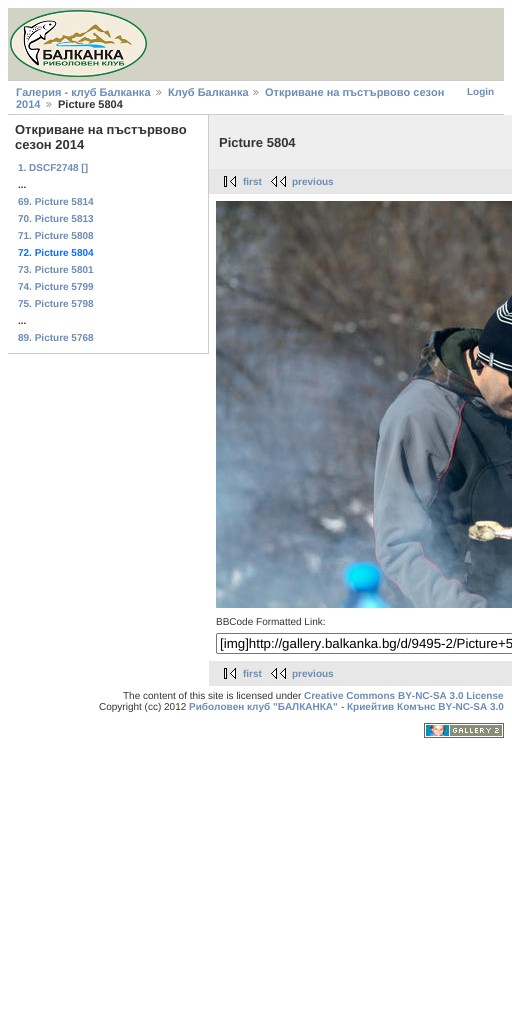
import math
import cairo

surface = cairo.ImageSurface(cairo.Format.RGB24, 512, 1035)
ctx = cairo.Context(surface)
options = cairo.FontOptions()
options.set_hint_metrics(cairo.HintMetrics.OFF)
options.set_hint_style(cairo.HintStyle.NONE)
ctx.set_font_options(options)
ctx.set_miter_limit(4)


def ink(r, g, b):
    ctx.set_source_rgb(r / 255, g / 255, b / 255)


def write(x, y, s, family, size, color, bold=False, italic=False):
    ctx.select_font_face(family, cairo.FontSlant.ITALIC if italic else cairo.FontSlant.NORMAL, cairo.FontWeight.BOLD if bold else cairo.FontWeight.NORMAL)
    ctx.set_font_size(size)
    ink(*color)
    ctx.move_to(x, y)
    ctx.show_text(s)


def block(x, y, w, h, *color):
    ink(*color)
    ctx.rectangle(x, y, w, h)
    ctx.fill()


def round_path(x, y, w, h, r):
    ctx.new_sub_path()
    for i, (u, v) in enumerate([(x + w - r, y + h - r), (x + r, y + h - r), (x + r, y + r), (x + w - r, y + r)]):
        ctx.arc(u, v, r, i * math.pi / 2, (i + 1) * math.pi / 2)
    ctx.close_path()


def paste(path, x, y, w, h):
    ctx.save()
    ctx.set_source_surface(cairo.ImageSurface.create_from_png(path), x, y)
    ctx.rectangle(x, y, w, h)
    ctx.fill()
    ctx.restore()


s1 = dict(family="Liberation Sans", size=11, color=(107, 140, 183), bold=True)
s2 = dict(family="Liberation Sans", size=11, color=(51, 51, 51), bold=True)
s3 = dict(family="Liberation Sans", size=10, color=(107, 140, 183), bold=True)
s4 = dict(family="Liberation Sans", size=13, color=(51, 51, 51), bold=True)
s5 = dict(family="Liberation Sans", size=10, color=(51, 51, 51), bold=True)
s6 = dict(family="Liberation Sans", size=10, color=(11, 108, 255), bold=True)
s7 = dict(family="Liberation Sans", size=10, color=(51, 51, 51))
s8 = dict(family="Liberation Sans", size=13.3, color=(0, 0, 0))

ink(255, 255, 255)
ctx.paint()
block(8, 8, 496, 72, 211, 211, 197)
paste("pic1.png", 10, 10, 137, 67)
block(8, 80, 496, 1, 204, 204, 204)
block(8, 114, 496, 1, 204, 204, 204)
write(16, 96, "Галерия - клуб Балканка", **s1)
paste("pic2.png", 156, 90, 6, 5)
write(168, 96, "Клуб Балканка", **s1)
paste("pic2.png", 253, 90, 6, 5)
write(265, 96, "Откриване на пъстървово сезон", **s1)
write(16, 108, "2014", **s1)
paste("pic2.png", 46, 102, 6, 5)
write(58, 108, "Picture 5804", **s2)
write(467, 95, "Login", **s3)
block(208, 115, 1, 239, 204, 204, 204)
block(8, 353, 200, 1, 204, 204, 204)
write(15, 134, "Откриване на пъстървово", **s4)
write(15, 149, "сезон 2014", **s4)
write(18, 171, "1. DSCF2748 []", **s3)
write(18, 188, "...", **s5)
write(18, 205, "69. Picture 5814", **s3)
write(18, 222, "70. Picture 5813", **s3)
write(18, 239, "71. Picture 5808", **s3)
write(18, 256, "72. Picture 5804", **s6)
write(18, 273, "73. Picture 5801", **s3)
write(18, 290, "74. Picture 5799", **s3)
write(18, 307, "75. Picture 5798", **s3)
write(18, 324, "...", **s5)
write(18, 341, "89. Picture 5768", **s3)
block(209, 115, 303, 54, 238, 238, 238)
write(219, 147, "Picture 5804", **s4)
block(209, 169, 303, 25, 231, 231, 231)
paste("pic3.png", 224, 176, 12, 11)
write(243, 185, "first", **s3)
paste("pic4.png", 271, 176, 15, 11)
write(292, 185, "previous", **s3)
paste("pic5.png", 216, 201, 296, 407)
write(216, 625, "BBCode Formatted Link:", **s7)
round_path(216.5, 633.5, 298, 20, 1.5)
ink(118, 118, 118)
ctx.set_line_width(1)
ctx.stroke()
write(220, 648, "[img]http://gallery.balkanka.bg/d/9495-2/Picture+5", **s8)
block(209, 661, 303, 25, 231, 231, 231)
paste("pic3.png", 224, 668, 12, 11)
write(243, 677, "first", **s3)
paste("pic4.png", 271, 668, 15, 11)
write(292, 677, "previous", **s3)
write(123, 699, "The content of this site is licensed under", **s7)
write(304, 699, "Creative Commons BY-NC-SA 3.0 License", **s3)
write(99, 710, "Copyright (cc) 2012", **s7)
write(189, 710, "Риболовен клуб \"БАЛКАНКА\"", **s3)
write(341, 710, "-", **s7)
write(347, 710, "Криейтив Комънс BY-NC-SA 3.0", **s3)
paste("pic6.png", 424, 723, 80, 15)
surface.write_to_png("screenshot.png")
